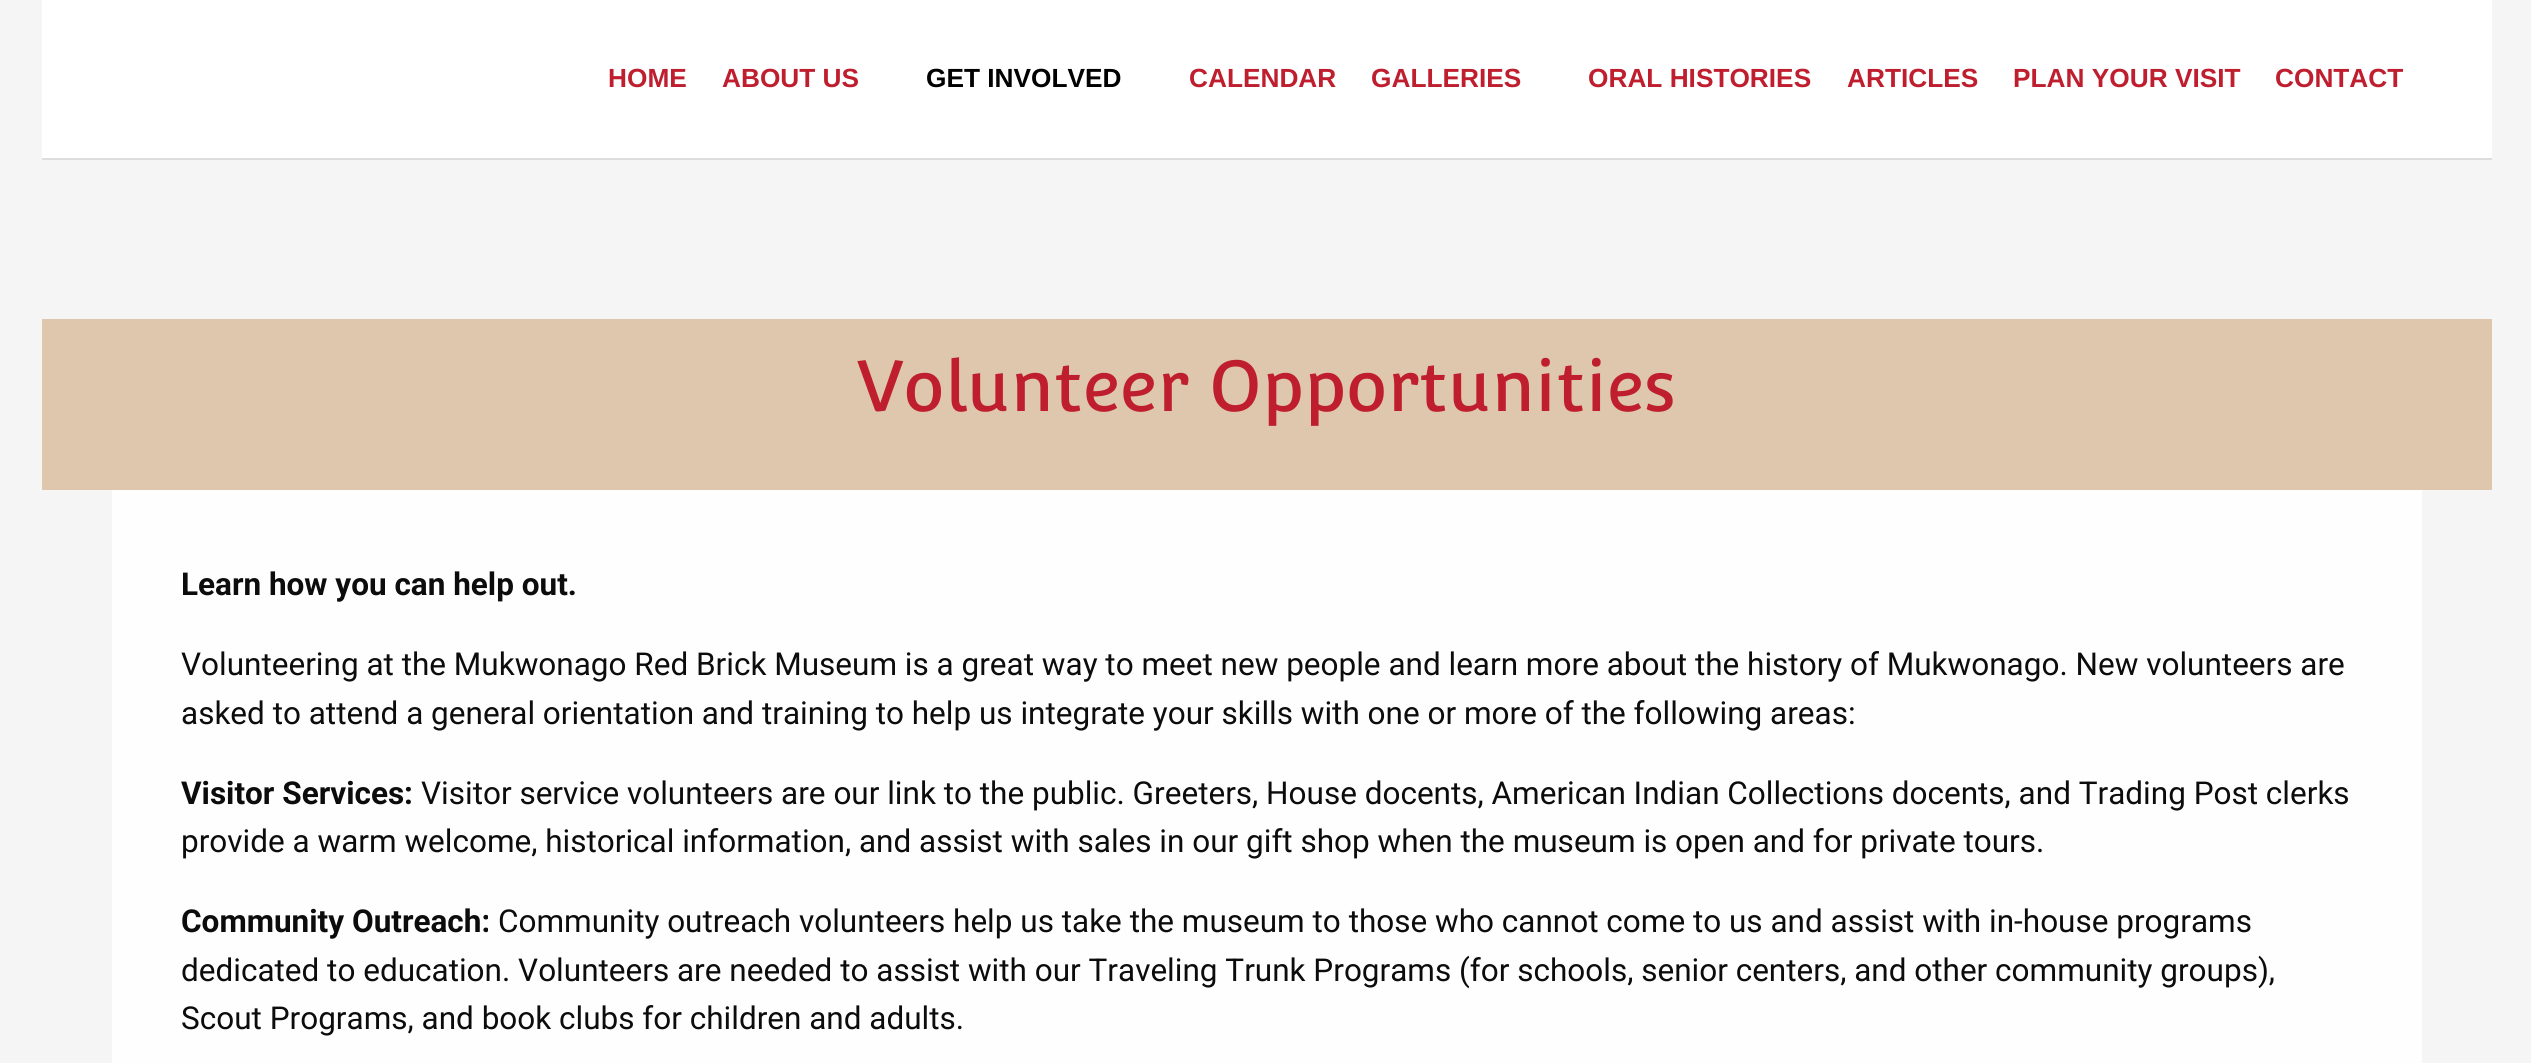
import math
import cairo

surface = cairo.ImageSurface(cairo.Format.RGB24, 2531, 1063)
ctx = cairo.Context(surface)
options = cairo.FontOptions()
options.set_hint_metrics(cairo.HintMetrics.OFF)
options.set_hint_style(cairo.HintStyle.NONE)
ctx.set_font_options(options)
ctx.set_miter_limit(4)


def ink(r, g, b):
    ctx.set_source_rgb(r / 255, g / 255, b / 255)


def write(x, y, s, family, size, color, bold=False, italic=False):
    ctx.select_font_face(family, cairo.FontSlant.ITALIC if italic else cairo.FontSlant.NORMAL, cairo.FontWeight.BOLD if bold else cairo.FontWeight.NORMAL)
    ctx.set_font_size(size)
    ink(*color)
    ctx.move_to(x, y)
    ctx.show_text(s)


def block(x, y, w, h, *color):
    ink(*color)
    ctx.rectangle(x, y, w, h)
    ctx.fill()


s1 = dict(family="Liberation Sans", size=26.25, color=(191, 30, 46), bold=True)
s2 = dict(family="Liberation Sans", size=26.25, color=(0, 0, 0), bold=True)
s3 = dict(family="Convergence", size=70, color=(191, 30, 46))
s4 = dict(family="Roboto", size=31.5, color=(12, 12, 12), bold=True)
s5 = dict(family="Roboto", size=31.5, color=(12, 12, 12))

ink(245, 245, 245)
ctx.paint()
block(42, 0, 2450, 158, 255, 255, 255)
block(42, 158, 2450, 2, 221, 221, 221)
write(608, 87, "HOME", **s1)
write(722, 87, "ABOUT US", **s1)
write(926, 87, "GET INVOLVED", **s2)
write(1189, 87, "CALENDAR", **s1)
write(1371, 87, "GALLERIES", **s1)
write(1588, 87, "ORAL HISTORIES", **s1)
write(1847, 87, "ARTICLES", **s1)
write(2013, 87, "PLAN YOUR VISIT", **s1)
write(2275, 87, "CONTACT", **s1)
block(42, 319, 2450, 171, 222, 199, 172)
write(857, 411, "Volunteer Opportunities", **s3)
block(112, 490, 2310, 573, 254, 254, 254)
write(181, 595, "Learn how you can help out.", **s4)
write(181, 675, "Volunteering at the Mukwonago Red Brick Museum is a great way to meet new people and learn more about the history of Mukwonago. New volunteers are", **s5)
write(181, 724, "asked to attend a general orientation and training to help us integrate your skills with one or more of the following areas:", **s5)
write(181, 804, "Visitor Services:", **s4)
write(421, 804, "Visitor service volunteers are our link to the public. Greeters, House docents, American Indian Collections docents, and Trading Post clerks", **s5)
write(181, 852, "provide a warm welcome, historical information, and assist with sales in our gift shop when the museum is open and for private tours.", **s5)
write(181, 932, "Community Outreach:", **s4)
write(498, 932, "Community outreach volunteers help us take the museum to those who cannot come to us and assist with in-house programs", **s5)
write(181, 981, "dedicated to education. Volunteers are needed to assist with our Traveling Trunk Programs (for schools, senior centers, and other community groups),", **s5)
write(181, 1029, "Scout Programs, and book clubs for children and adults.", **s5)
surface.write_to_png("screenshot.png")
